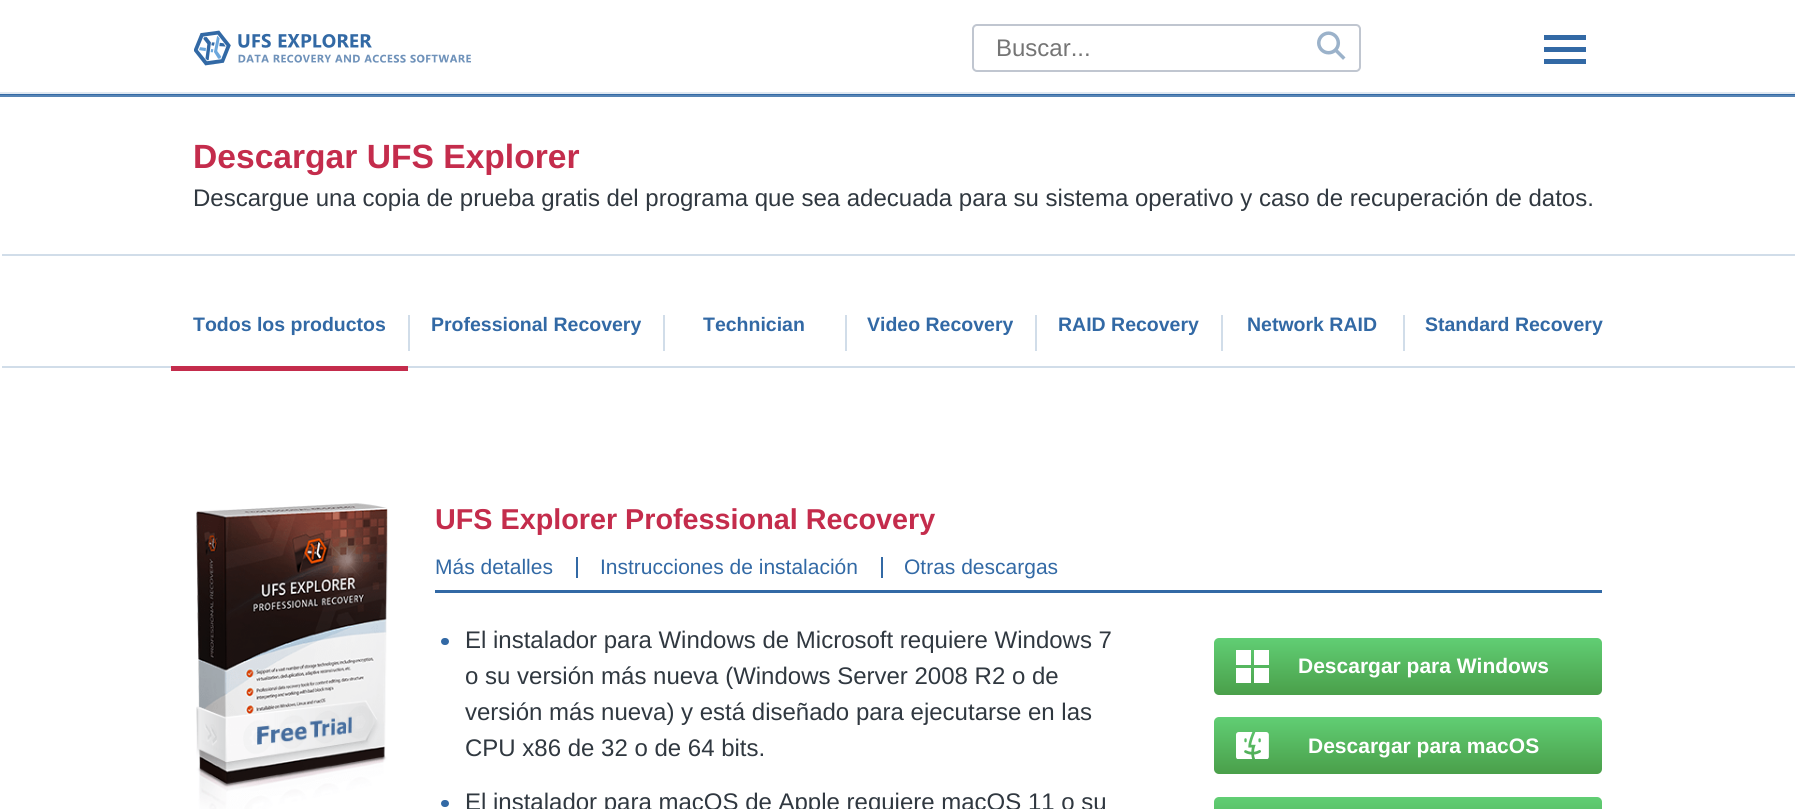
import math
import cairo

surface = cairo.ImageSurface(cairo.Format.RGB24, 1795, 809)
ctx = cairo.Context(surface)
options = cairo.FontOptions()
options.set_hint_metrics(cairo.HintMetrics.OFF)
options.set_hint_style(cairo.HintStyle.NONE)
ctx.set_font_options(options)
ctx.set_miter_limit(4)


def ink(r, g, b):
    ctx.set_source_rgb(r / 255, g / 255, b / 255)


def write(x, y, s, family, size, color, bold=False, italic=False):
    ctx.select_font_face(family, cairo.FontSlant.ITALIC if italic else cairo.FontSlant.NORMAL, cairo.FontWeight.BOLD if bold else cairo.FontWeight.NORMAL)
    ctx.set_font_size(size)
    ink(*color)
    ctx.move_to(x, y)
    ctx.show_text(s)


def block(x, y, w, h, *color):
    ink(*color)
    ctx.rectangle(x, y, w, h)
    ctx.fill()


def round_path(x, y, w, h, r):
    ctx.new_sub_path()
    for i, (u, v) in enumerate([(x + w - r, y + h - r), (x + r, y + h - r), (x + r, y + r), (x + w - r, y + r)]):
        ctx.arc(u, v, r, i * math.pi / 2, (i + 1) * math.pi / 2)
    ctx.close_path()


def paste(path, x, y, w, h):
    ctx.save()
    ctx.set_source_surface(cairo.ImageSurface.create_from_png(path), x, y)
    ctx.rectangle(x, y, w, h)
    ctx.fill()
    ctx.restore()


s1 = dict(family="Liberation Sans", size=24, color=(117, 117, 117))
s2 = dict(family="Liberation Sans", size=33.6, color=(196, 44, 76), bold=True)
s3 = dict(family="Liberation Sans", size=24, color=(48, 56, 64))
s4 = dict(family="Liberation Sans", size=19.5, color=(50, 105, 165), bold=True)
s5 = dict(family="Liberation Sans", size=28.75, color=(196, 44, 76), bold=True)
s6 = dict(family="Liberation Sans", size=21, color=(50, 105, 165))
s7 = dict(family="Liberation Sans", size=21, color=(255, 255, 255), bold=True)

ink(255, 255, 255)
ctx.paint()
paste("pic1.png", 194, 30, 277, 36)
round_path(973, 25, 387, 46, 4)
ink(192, 198, 208)
ctx.stroke()
write(996, 56, "Buscar...", **s1)
paste("pic2.png", 1317, 31, 29, 29)
block(1544, 47, 42, 5, 50, 105, 165)
block(1544, 35, 42, 5, 50, 105, 165)
block(1544, 59, 42, 5, 50, 105, 165)
block(0, 94, 1795, 1, 50, 105, 165)
block(0, 92, 1795, 2, 224, 232, 241)
block(0, 95, 1795, 2, 87, 132, 181)
write(193, 168, "Descargar UFS Explorer", **s2)
write(193, 206, "Descargue una copia de prueba gratis del programa que sea adecuada para su sistema operativo y caso de recuperación de datos.", **s3)
block(2, 254, 1793, 2, 209, 221, 233)
write(193, 331, "Todos los productos", **s4)
block(2, 366, 1793, 2, 209, 221, 233)
block(171, 366, 237, 5, 196, 44, 76)
block(408, 315, 2, 36, 209, 221, 233)
write(431, 331, "Professional Recovery", **s4)
block(663, 315, 2, 36, 209, 221, 233)
write(703, 331, "Technician", **s4)
block(845, 315, 2, 36, 209, 221, 233)
write(867, 331, "Video Recovery", **s4)
block(1035, 315, 2, 36, 209, 221, 233)
write(1058, 331, "RAID Recovery", **s4)
block(1221, 315, 2, 36, 209, 221, 233)
write(1247, 331, "Network RAID", **s4)
block(1403, 315, 2, 36, 209, 221, 233)
write(1425, 331, "Standard Recovery", **s4)
paste("pic3.png", 196, 503, 192, 306)
write(435, 529, "UFS Explorer Professional Recovery", **s5)
write(435, 574, "Más detalles", **s6)
block(576, 557, 2, 21, 50, 105, 165)
write(600, 574, "Instrucciones de instalación", **s6)
block(881, 557, 2, 21, 50, 105, 165)
write(904, 574, "Otras descargas", **s6)
block(435, 590, 1167, 3, 50, 105, 165)
round_path(441, 638, 8, 7, 3.5)
ctx.fill()
write(465, 648, "El instalador para Windows de Microsoft requiere Windows 7", **s3)
write(465, 684, "o su versión más nueva (Windows Server 2008 R2 o de", **s3)
write(465, 720, "versión más nueva) y está diseñado para ejecutarse en las", **s3)
write(465, 756, "CPU x86 de 32 o de 64 bits.", **s3)
ink(50, 105, 165)
round_path(441, 800, 8, 7, 3.5)
ctx.fill()
write(465, 810, "El instalador para macOS de Apple requiere macOS 11 o su", **s3)
gradient = cairo.LinearGradient(1408, 695, 1408, 638)
gradient.add_color_stop_rgba(0, 0.29, 0.624, 0.29, 1)
gradient.add_color_stop_rgba(1, 0.38, 0.808, 0.455, 1)
ctx.set_source(gradient)
round_path(1214, 638, 388, 57, 5)
ctx.fill()
block(1236, 650, 15, 15, 255, 255, 255)
block(1254, 650, 15, 15, 255, 255, 255)
block(1236, 668, 15, 15, 255, 255, 255)
block(1254, 668, 15, 15, 255, 255, 255)
write(1298, 673, "Descargar para Windows", **s7)
gradient = cairo.LinearGradient(1408, 774, 1408, 717)
gradient.add_color_stop_rgba(0, 0.29, 0.624, 0.29, 1)
gradient.add_color_stop_rgba(1, 0.38, 0.808, 0.455, 1)
ctx.set_source(gradient)
round_path(1214, 717, 388, 57, 5)
ctx.fill()
paste("pic4.png", 1236, 732, 33, 27)
write(1308, 753, "Descargar para macOS", **s7)
gradient = cairo.LinearGradient(1408, 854, 1408, 797)
gradient.add_color_stop_rgba(0, 0.29, 0.624, 0.29, 1)
gradient.add_color_stop_rgba(1, 0.38, 0.808, 0.455, 1)
ctx.set_source(gradient)
round_path(1214, 797, 388, 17, 5)
ctx.fill()
surface.write_to_png("screenshot.png")
